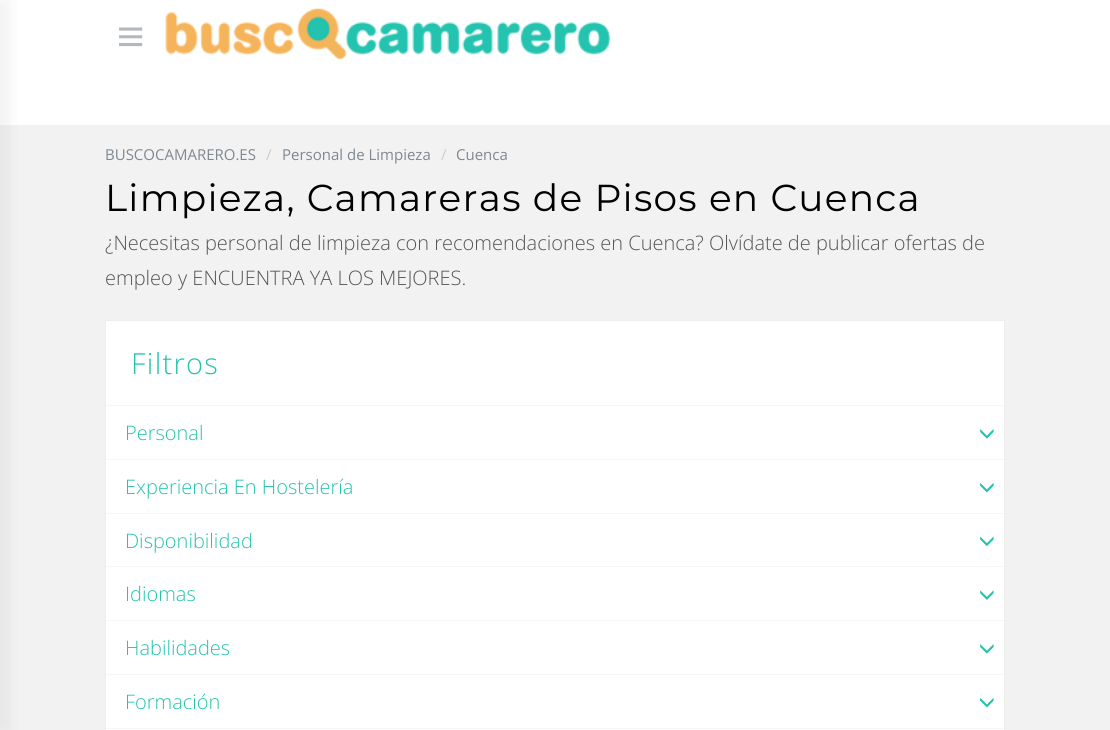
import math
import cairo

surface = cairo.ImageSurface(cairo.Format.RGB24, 1110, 730)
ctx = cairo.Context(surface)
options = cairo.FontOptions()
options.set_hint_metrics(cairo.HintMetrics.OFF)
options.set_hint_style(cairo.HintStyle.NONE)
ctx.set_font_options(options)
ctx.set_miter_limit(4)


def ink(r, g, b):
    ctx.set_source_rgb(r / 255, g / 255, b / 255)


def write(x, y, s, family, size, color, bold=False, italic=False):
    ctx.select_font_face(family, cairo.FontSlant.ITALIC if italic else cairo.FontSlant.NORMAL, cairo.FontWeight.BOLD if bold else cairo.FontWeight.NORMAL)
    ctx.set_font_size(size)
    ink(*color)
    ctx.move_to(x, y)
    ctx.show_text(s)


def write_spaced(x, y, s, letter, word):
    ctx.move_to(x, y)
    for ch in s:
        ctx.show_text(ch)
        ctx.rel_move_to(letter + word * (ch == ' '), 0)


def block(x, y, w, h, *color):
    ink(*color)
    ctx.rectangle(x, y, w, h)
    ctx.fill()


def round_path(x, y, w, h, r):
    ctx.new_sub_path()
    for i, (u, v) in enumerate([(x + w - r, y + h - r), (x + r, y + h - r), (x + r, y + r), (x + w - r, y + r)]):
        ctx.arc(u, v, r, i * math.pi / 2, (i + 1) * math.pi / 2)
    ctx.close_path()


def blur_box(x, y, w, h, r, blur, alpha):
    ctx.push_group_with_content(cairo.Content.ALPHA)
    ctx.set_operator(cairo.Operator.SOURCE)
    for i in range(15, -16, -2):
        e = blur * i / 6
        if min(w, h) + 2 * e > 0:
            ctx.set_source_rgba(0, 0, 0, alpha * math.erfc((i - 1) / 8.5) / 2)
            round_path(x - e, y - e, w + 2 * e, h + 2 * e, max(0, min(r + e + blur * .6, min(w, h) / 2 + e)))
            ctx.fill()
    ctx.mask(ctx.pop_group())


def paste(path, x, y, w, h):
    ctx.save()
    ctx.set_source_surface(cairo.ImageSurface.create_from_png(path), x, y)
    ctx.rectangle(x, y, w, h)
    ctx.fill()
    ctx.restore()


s1 = dict(family="Open Sans", size=15, color=(126, 136, 144))
s2 = dict(family="Open Sans", size=15, color=(204, 204, 204))
s3 = dict(family="Open Sans Light", size=20, color=(85, 85, 85))
s4 = dict(family="Open Sans Light", size=20, color=(35, 195, 175))

ink(242, 242, 242)
ctx.paint()
block(0, 0, 1110, 125, 255, 255, 255)
ink(0, 0, 0)
blur_box(-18, 0, 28, 730, 0, 6, 0.05)
paste("pic1.png", 119, 27, 24, 20)
paste("pic2.png", 165, 8, 446, 51)
write(105, 160, "BUSCOCAMARERO.ES", **s1)
write(266, 160, "/", **s2)
write(282, 160, "Personal de Limpieza", **s1)
write(441, 160, "/", **s2)
write(456, 160, "Cuenca", **s1)
ctx.select_font_face("Montserrat")
ctx.set_font_size(37.5)
ink(0, 0, 0)
write_spaced(105, 211, "Limpieza, Camareras de Pisos en Cuenca", 1.25, 0)
write(105, 250, "¿Necesitas personal de limpieza con recomendaciones en Cuenca? Olvídate de publicar ofertas de", **s3)
write(105, 285, "empleo y ENCUENTRA YA LOS MEJORES.", **s3)
ink(255, 255, 255)
ctx.rectangle(105.5, 320.5, 899, 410)
ctx.fill_preserve()
ink(238, 238, 238)
ctx.set_line_width(1)
ctx.stroke()
block(106, 405, 898, 1, 246, 246, 246)
ctx.set_font_size(29)
ink(35, 195, 175)
write_spaced(131, 374, "Filtros", 1.25, 0)
block(106, 459, 898, 1, 246, 246, 246)
write(125, 440, "Personal", **s4)
paste("pic3.png", 980, 429, 14, 10)
block(106, 513, 898, 1, 246, 246, 246)
write(125, 494, "Experiencia En Hostelería", **s4)
paste("pic4.png", 980, 483, 14, 10)
block(106, 566, 898, 1, 246, 246, 246)
write(125, 548, "Disponibilidad", **s4)
paste("pic5.png", 980, 536, 14, 10)
block(106, 620, 898, 1, 246, 246, 246)
write(125, 601, "Idiomas", **s4)
paste("pic6.png", 980, 590, 14, 10)
block(106, 674, 898, 1, 246, 246, 246)
write(125, 655, "Habilidades", **s4)
paste("pic3.png", 980, 644, 14, 10)
block(106, 728, 898, 1, 246, 246, 246)
write(125, 709, "Formación", **s4)
paste("pic4.png", 980, 698, 14, 10)
surface.write_to_png("screenshot.png")
